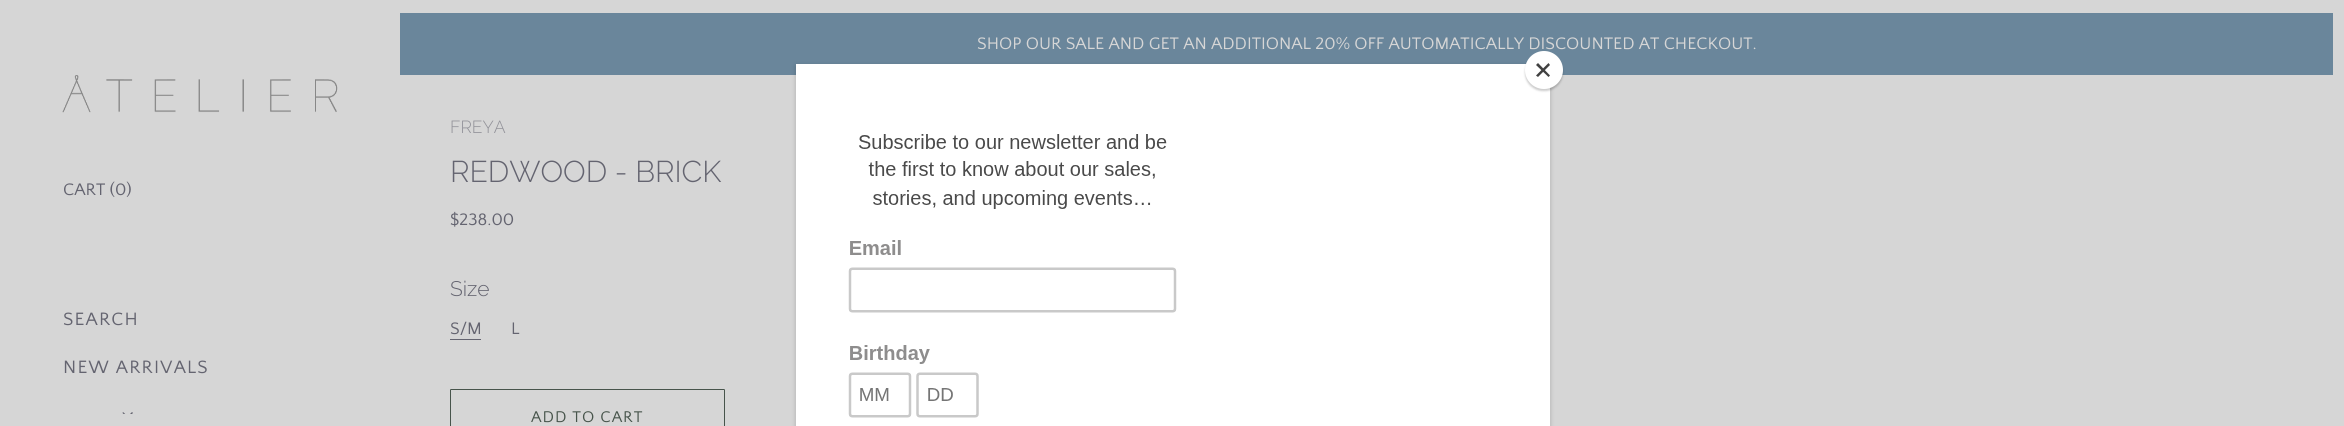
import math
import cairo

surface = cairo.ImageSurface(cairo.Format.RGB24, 2344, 426)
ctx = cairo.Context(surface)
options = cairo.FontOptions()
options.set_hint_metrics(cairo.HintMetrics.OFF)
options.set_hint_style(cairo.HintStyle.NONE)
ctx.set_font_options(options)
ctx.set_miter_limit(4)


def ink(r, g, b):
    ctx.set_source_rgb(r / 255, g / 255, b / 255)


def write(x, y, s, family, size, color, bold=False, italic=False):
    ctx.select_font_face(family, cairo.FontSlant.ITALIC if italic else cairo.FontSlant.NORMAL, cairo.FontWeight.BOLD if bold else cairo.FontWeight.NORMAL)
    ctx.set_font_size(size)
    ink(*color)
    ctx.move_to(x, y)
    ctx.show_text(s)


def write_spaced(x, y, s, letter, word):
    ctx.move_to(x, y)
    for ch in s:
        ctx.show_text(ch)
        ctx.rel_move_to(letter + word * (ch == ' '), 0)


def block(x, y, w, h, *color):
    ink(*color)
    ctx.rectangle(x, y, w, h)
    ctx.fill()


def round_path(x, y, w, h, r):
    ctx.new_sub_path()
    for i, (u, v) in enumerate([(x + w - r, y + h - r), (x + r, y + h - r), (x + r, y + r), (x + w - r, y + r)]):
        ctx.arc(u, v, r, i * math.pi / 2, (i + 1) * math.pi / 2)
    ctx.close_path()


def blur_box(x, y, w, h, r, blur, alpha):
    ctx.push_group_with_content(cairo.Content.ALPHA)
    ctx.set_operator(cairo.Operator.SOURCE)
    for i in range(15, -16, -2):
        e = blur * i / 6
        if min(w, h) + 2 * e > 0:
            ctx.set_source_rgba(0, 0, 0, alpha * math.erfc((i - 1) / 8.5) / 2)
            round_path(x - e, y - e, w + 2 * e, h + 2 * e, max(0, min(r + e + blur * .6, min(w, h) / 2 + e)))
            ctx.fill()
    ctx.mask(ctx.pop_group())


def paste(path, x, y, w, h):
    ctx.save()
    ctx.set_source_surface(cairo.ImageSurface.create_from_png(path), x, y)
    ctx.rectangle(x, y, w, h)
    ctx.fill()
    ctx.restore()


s1 = dict(family="Quattrocento Sans", size=17.5, color=(214, 214, 214))
s2 = dict(family="Quattrocento Sans", size=17.5, color=(100, 100, 112))
s3 = dict(family="Raleway Light", size=17.5, color=(145, 145, 152))
s4 = dict(family="Raleway Light", size=30, color=(100, 100, 112))
s5 = dict(family="Raleway Light", size=21, color=(100, 100, 112))

ink(214, 214, 214)
ctx.paint()
block(400, 13, 1933, 62, 106, 134, 155)
write(977, 49, "SHOP OUR SALE AND GET AN ADDITIONAL 20% OFF AUTOMATICALLY DISCOUNTED AT CHECKOUT.", **s1)
paste("pic1.png", 62, 75, 276, 38)
write(63, 195, "CART (0)", **s2)
ctx.set_font_size(18.75)
write_spaced(63, 325, "SEARCH", 1.25, 0)
write_spaced(63, 373, "NEW ARRIVALS", 1.25, 0)
ctx.save()
ctx.rectangle(13, 13, 375, 401)
ctx.clip()
ctx.new_path()
ctx.move_to(133, 413)
ctx.line_to(127.5, 418)
ctx.line_to(127, 417)
ctx.line_to(132, 412)
ctx.close_path()
ctx.move_to(128.5, 417)
ctx.line_to(127.5, 418)
ctx.line_to(122.5, 413)
ctx.line_to(123, 412)
ctx.close_path()
ctx.fill()
ctx.restore()
write(450, 133, "FREYA", **s3)
write(450, 182, "REDWOOD - BRICK", **s4)
write(450, 225, "$238.00", **s2)
write(450, 296, "Size", **s5)
write(450, 334, "S/M", **s2)
block(450, 339, 31, 1, 100, 100, 112)
write(511, 334, "L", **s2)
round_path(450.5, 389.5, 274, 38, 0.5)
ink(71, 84, 75)
ctx.set_line_width(1)
ctx.stroke()
ctx.set_font_size(16.25)
write_spaced(531, 422, "ADD TO CART", 1, 0)
ink(0, 0, 0)
blur_box(796, 66, 754, 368, 0, 2.5, 0.2)
paste("pic2.png", 796, 64, 754, 362)
blur_box(1525, 54, 38, 37, 18.5, 1, 0.2)
ink(255, 255, 255)
ctx.arc(1544, 70, 19, 0, 2 * math.pi)
ctx.fill()
ink(65, 65, 65)
ctx.new_path()
ctx.move_to(1548.5, 63)
ctx.line_to(1550, 65)
ctx.line_to(1538, 77)
ctx.line_to(1536, 75.5)
ctx.close_path()
ctx.fill()
ctx.new_path()
ctx.move_to(1536, 65)
ctx.line_to(1538, 63)
ctx.line_to(1550, 75.5)
ctx.line_to(1548.5, 77)
ctx.close_path()
ctx.fill()
surface.write_to_png("screenshot.png")
